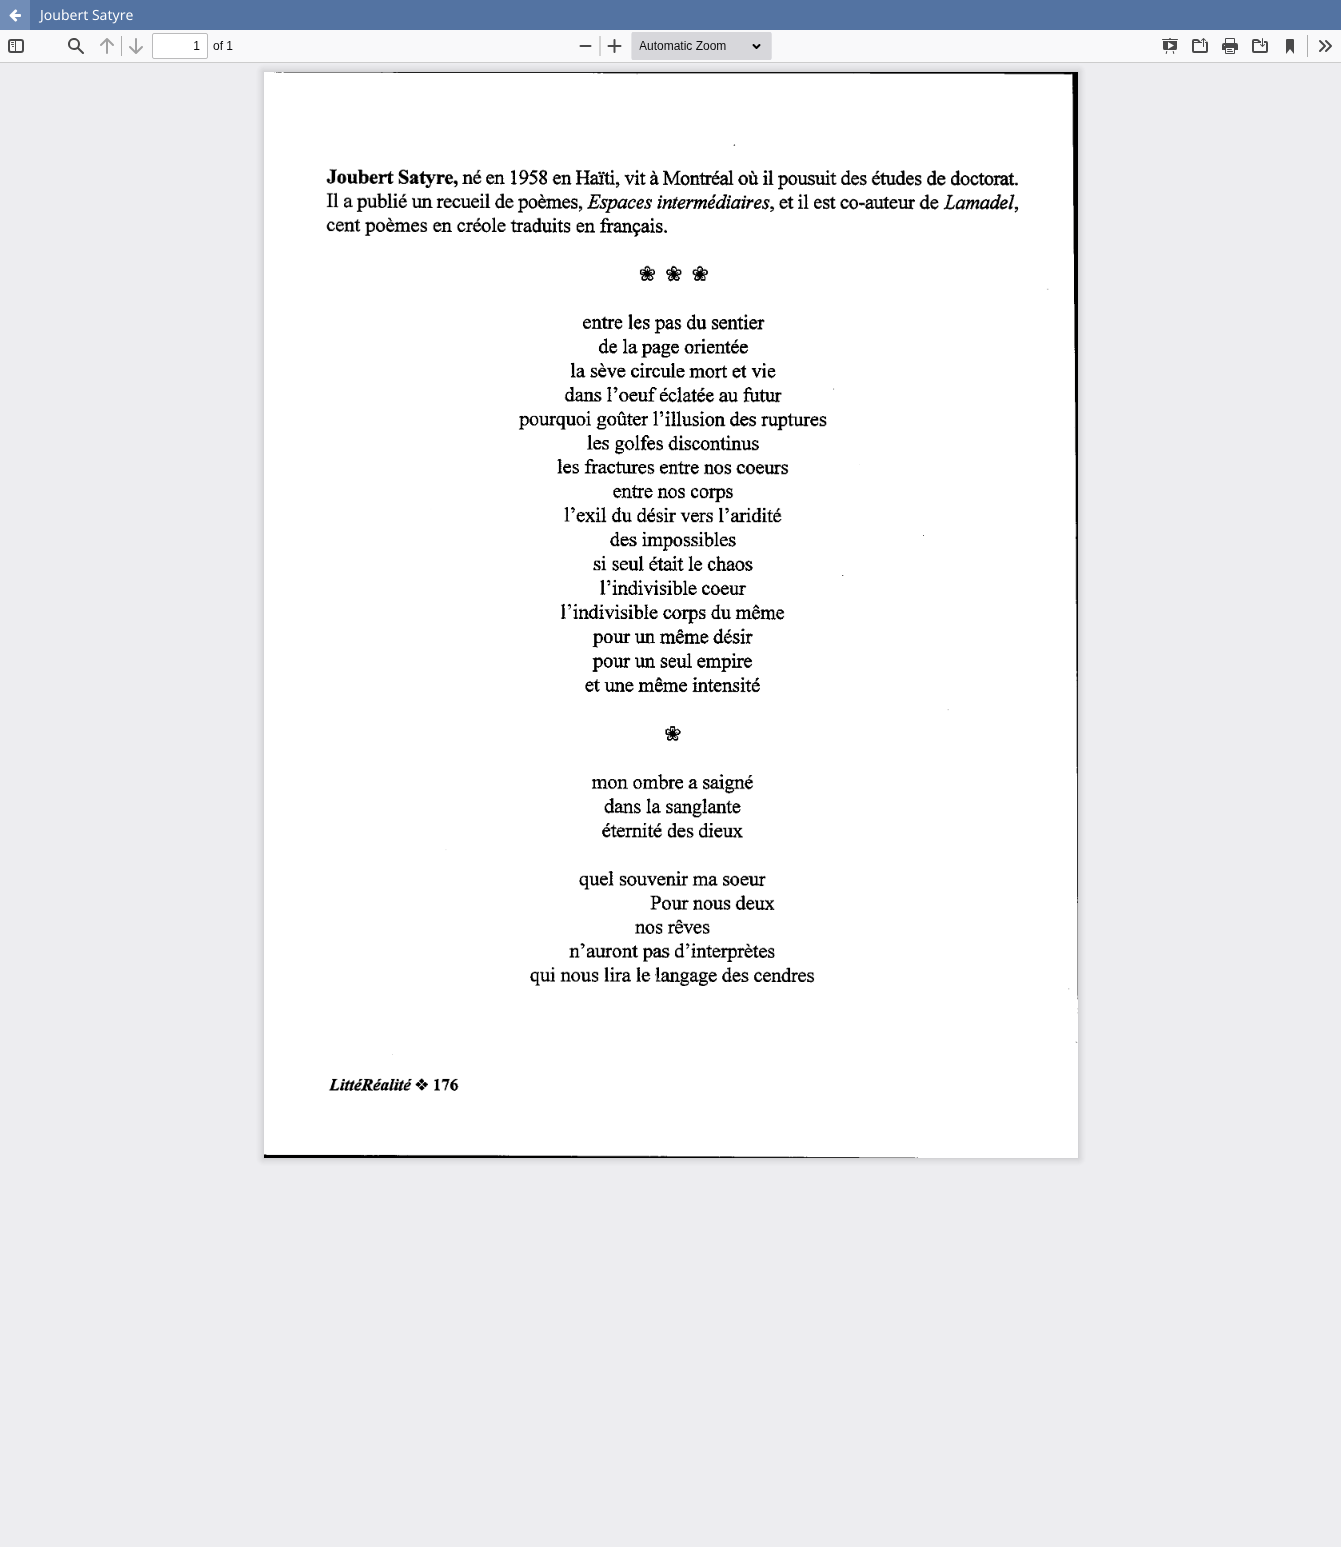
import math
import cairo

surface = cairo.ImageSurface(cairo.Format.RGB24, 1341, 1547)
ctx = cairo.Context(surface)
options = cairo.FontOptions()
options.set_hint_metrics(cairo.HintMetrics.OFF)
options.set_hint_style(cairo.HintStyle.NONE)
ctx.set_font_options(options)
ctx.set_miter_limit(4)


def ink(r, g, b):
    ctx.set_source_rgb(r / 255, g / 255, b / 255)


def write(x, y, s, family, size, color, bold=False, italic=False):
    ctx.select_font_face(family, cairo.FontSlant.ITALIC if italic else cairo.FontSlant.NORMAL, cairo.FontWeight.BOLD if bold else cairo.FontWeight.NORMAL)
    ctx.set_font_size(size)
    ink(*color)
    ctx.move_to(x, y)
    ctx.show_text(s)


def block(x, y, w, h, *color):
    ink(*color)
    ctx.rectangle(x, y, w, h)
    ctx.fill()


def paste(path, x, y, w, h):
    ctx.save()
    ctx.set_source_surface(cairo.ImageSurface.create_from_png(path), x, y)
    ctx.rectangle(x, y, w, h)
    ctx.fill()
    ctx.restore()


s1 = dict(family="Noto Sans", size=14, color=(255, 255, 255))

ink(83, 115, 162)
ctx.paint()
block(0, 0, 30, 30, 113, 141, 183)
paste("pic1.png", 9, 9, 12, 13)
write(40, 20, "Joubert Satyre", **s1)
paste("pic2.png", 0, 30, 1341, 1517)
surface.write_to_png("screenshot.png")
